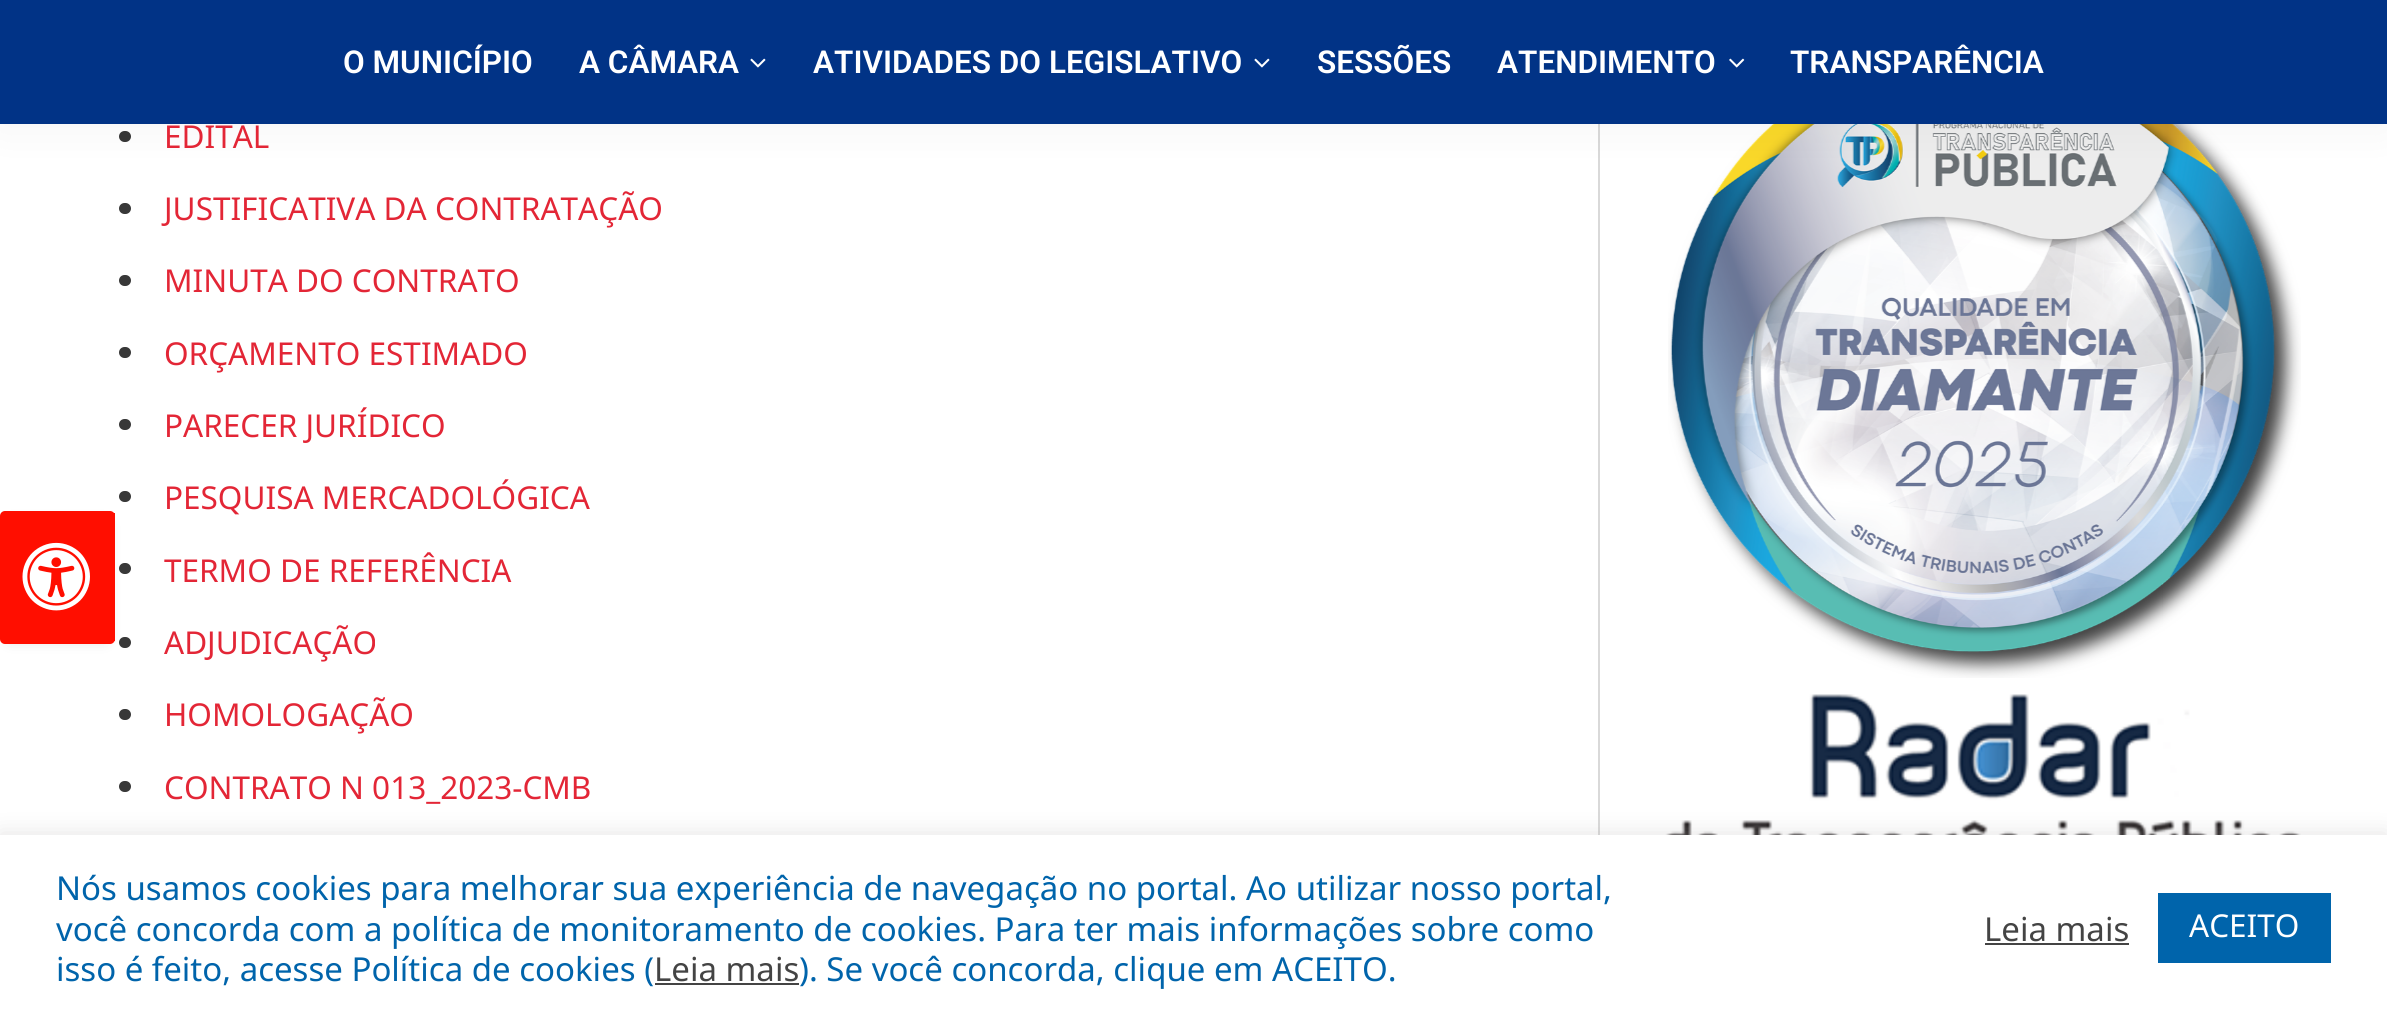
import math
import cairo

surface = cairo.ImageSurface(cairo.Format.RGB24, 2387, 1019)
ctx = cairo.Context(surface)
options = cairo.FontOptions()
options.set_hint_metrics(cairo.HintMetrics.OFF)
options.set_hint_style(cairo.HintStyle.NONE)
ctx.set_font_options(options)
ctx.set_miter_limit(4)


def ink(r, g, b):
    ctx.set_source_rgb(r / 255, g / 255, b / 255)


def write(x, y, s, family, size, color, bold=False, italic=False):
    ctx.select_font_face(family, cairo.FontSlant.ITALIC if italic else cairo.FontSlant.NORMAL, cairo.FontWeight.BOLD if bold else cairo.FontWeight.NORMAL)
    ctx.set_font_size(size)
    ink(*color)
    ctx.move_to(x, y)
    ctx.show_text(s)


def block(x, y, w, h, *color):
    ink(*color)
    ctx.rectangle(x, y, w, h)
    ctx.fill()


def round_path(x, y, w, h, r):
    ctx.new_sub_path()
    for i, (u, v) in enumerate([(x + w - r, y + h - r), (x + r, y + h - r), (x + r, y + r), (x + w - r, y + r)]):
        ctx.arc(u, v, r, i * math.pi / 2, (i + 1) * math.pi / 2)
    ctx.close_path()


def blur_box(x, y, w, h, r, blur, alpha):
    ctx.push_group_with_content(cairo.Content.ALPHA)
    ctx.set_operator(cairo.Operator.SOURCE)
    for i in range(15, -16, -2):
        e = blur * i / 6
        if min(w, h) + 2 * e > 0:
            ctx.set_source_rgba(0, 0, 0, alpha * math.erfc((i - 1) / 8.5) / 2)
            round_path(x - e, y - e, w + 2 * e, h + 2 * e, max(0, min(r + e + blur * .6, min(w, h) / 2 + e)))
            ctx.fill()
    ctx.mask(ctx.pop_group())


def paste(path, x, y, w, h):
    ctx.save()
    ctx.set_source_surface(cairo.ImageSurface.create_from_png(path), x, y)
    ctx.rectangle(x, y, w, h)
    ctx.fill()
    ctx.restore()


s1 = dict(family="Roboto SemiBold", size=31.5, color=(255, 255, 255))
s2 = dict(family="Noto Sans Georgian", size=31.5, color=(227, 38, 54))
s3 = dict(family="Noto Sans Georgian", size=33, color=(0, 100, 171))
s4 = dict(family="Noto Sans Georgian", size=33, color=(68, 68, 68))
s5 = dict(family="Noto Sans Georgian", size=31.5, color=(255, 255, 255))

ink(255, 255, 255)
ctx.paint()
ink(56, 56, 56)
round_path(119, 491, 12, 11, 5.5)
ctx.fill()
round_path(119, 563, 12, 11, 5.5)
ctx.fill()
round_path(119, 637, 12, 11, 5.5)
ctx.fill()
ink(0, 0, 0)
blur_box(9, 524, 97, 115, 0, 8, 0.16)
ink(255, 14, 0)
round_path(0, 511, 115, 133, 5)
ctx.fill()
block(114, 513, 1, 128, 255, 14, 0)
paste("pic1.png", 22, 542, 68, 69)
ink(56, 56, 56)
round_path(119, 131, 12, 11, 5.5)
ctx.fill()
block(1598, 124, 2, 711, 217, 217, 217)
paste("pic4.png", 1668, 124, 633, 554)
ink(0, 0, 0)
blur_box(0, 0, 2387, 124, 0, 22.5, 0.05)
block(0, 0, 2387, 124, 1, 51, 134)
write(343, 73, "O MUNICÍPIO", **s1)
write(579, 73, "A CÂMARA", **s1)
paste("pic2.png", 750, 58, 16, 10)
write(813, 73, "ATIVIDADES DO LEGISLATIVO", **s1)
paste("pic2.png", 1254, 58, 16, 10)
write(1317, 73, "SESSÕES", **s1)
write(1497, 73, "ATENDIMENTO", **s1)
paste("pic3.png", 1729, 58, 16, 10)
write(1790, 73, "TRANSPARÊNCIA", **s1)
write(164, 148, "EDITAL", **s2)
ink(56, 56, 56)
round_path(119, 203, 12, 11, 5.5)
ctx.fill()
write(164, 220, "JUSTIFICATIVA DA CONTRATAÇÃO", **s2)
ink(56, 56, 56)
round_path(119, 275, 12, 11, 5.5)
ctx.fill()
write(164, 292, "MINUTA DO CONTRATO", **s2)
ink(56, 56, 56)
round_path(119, 347, 12, 11, 5.5)
ctx.fill()
write(164, 365, "ORÇAMENTO ESTIMADO", **s2)
ink(56, 56, 56)
round_path(119, 419, 12, 11, 5.5)
ctx.fill()
write(164, 437, "PARECER JURÍDICO", **s2)
write(164, 509, "PESQUISA MERCADOLÓGICA", **s2)
write(164, 582, "TERMO DE REFERÊNCIA", **s2)
write(164, 654, "ADJUDICAÇÃO", **s2)
ink(56, 56, 56)
round_path(119, 709, 12, 11, 5.5)
ctx.fill()
write(164, 726, "HOMOLOGAÇÃO", **s2)
ink(56, 56, 56)
round_path(119, 781, 12, 11, 5.5)
ctx.fill()
write(164, 799, "CONTRATO N 013_2023-CMB", **s2)
paste("pic5.png", 1659, 694, 646, 141)
ink(172, 171, 171)
blur_box(0, 833, 2387, 184, 0, 11, 0.3)
block(0, 835, 2387, 184, 255, 255, 255)
write(56, 900, "Nós usamos cookies para melhorar sua experiência de navegação no portal. Ao utilizar nosso portal,", **s3)
write(56, 941, "você concorda com a política de monitoramento de cookies. Para ter mais informações sobre como", **s3)
write(56, 981, "isso é feito, acesse Política de cookies (", **s3)
write(654, 981, "Leia mais", **s4)
block(655, 983, 144, 2, 68, 68, 68)
write(799, 981, "). Se você concorda, clique em ACEITO.", **s3)
write(1984, 941, "Leia mais", **s4)
block(1985, 943, 144, 2, 68, 68, 68)
block(2158, 893, 173, 70, 0, 100, 171)
write(2189, 937, "ACEITO", **s5)
surface.write_to_png("screenshot.png")
